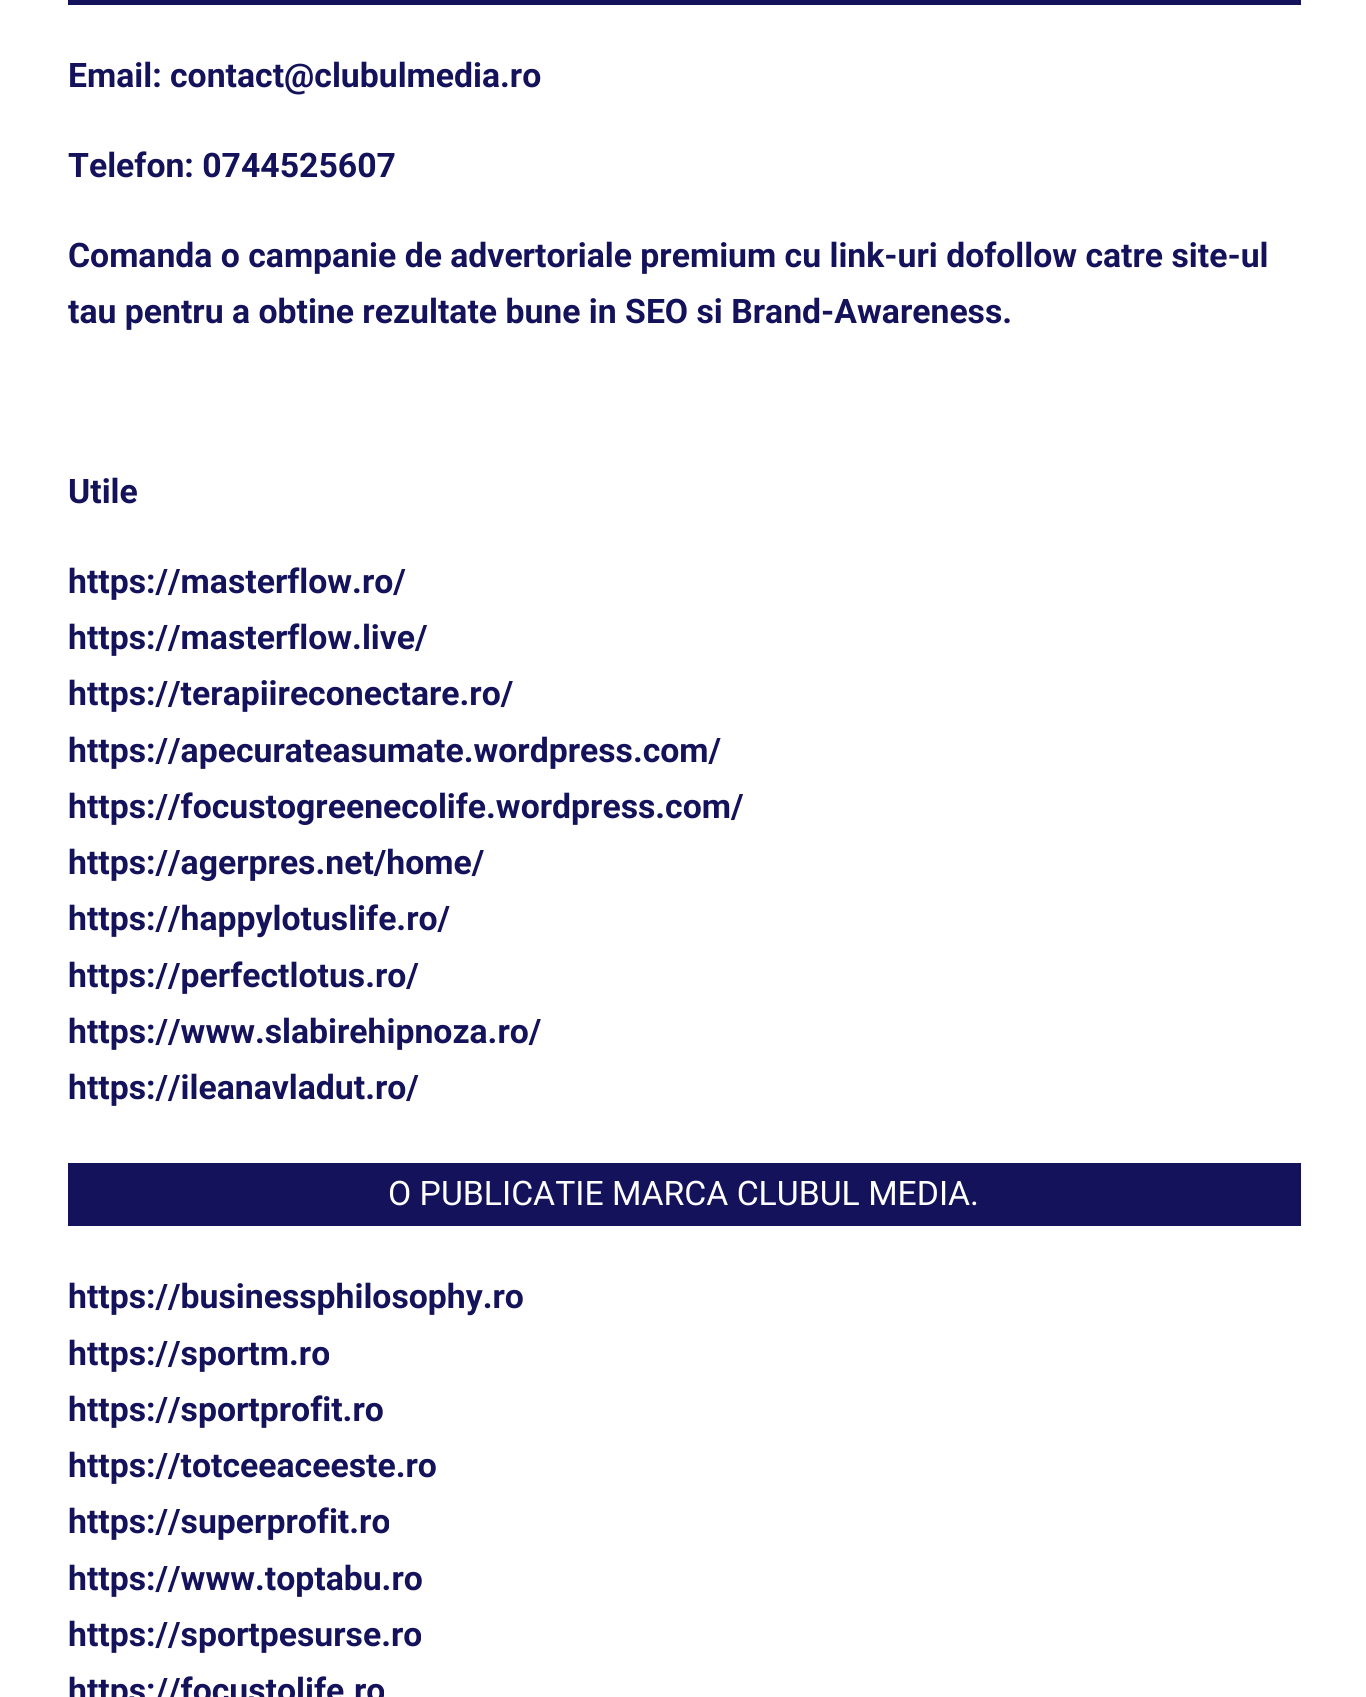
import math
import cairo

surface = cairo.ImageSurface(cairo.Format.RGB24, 1366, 1697)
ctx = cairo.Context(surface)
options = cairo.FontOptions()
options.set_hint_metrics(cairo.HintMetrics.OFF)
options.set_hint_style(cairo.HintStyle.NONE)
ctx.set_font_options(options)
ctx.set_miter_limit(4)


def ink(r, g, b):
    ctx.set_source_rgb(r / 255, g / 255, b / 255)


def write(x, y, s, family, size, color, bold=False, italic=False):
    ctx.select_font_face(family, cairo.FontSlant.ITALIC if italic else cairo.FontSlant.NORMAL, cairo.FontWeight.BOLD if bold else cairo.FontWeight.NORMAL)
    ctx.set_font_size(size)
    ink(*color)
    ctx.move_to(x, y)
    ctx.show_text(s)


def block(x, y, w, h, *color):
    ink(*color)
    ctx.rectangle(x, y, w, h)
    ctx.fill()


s1 = dict(family="Roboto", size=33.75, color=(20, 18, 91), bold=True)
s2 = dict(family="Roboto", size=33.75, color=(255, 255, 255))

ink(255, 255, 255)
ctx.paint()
block(68, 0, 1233, 5, 20, 18, 91)
write(68, 87, "Email: contact@clubulmedia.ro", **s1)
write(68, 177, "Telefon: 0744525607", **s1)
write(68, 267, "Comanda o campanie de advertoriale premium cu link-uri dofollow catre site-ul", **s1)
write(68, 323, "tau pentru a obtine rezultate bune in SEO si Brand-Awareness.", **s1)
write(68, 503, "Utile", **s1)
write(68, 593, "https://masterflow.ro/", **s1)
write(68, 649, "https://masterflow.live/", **s1)
write(68, 705, "https://terapiireconectare.ro/", **s1)
write(68, 762, "https://apecurateasumate.wordpress.com/", **s1)
write(68, 818, "https://focustogreenecolife.wordpress.com/", **s1)
write(68, 874, "https://agerpres.net/home/", **s1)
write(68, 930, "https://happylotuslife.ro/", **s1)
write(68, 987, "https://perfectlotus.ro/", **s1)
write(68, 1043, "https://www.slabirehipnoza.ro/", **s1)
write(68, 1099, "https://ileanavladut.ro/", **s1)
block(68, 1163, 1233, 63, 20, 18, 91)
write(388, 1205, "O PUBLICATIE MARCA CLUBUL MEDIA.", **s2)
write(68, 1308, "https://businessphilosophy.ro", **s1)
write(68, 1365, "https://sportm.ro", **s1)
write(68, 1421, "https://sportprofit.ro", **s1)
write(68, 1477, "https://totceeaceeste.ro", **s1)
write(68, 1533, "https://superprofit.ro", **s1)
write(68, 1590, "https://www.toptabu.ro", **s1)
write(68, 1646, "https://sportpesurse.ro", **s1)
write(68, 1702, "https://focustolife.ro", **s1)
surface.write_to_png("screenshot.png")
